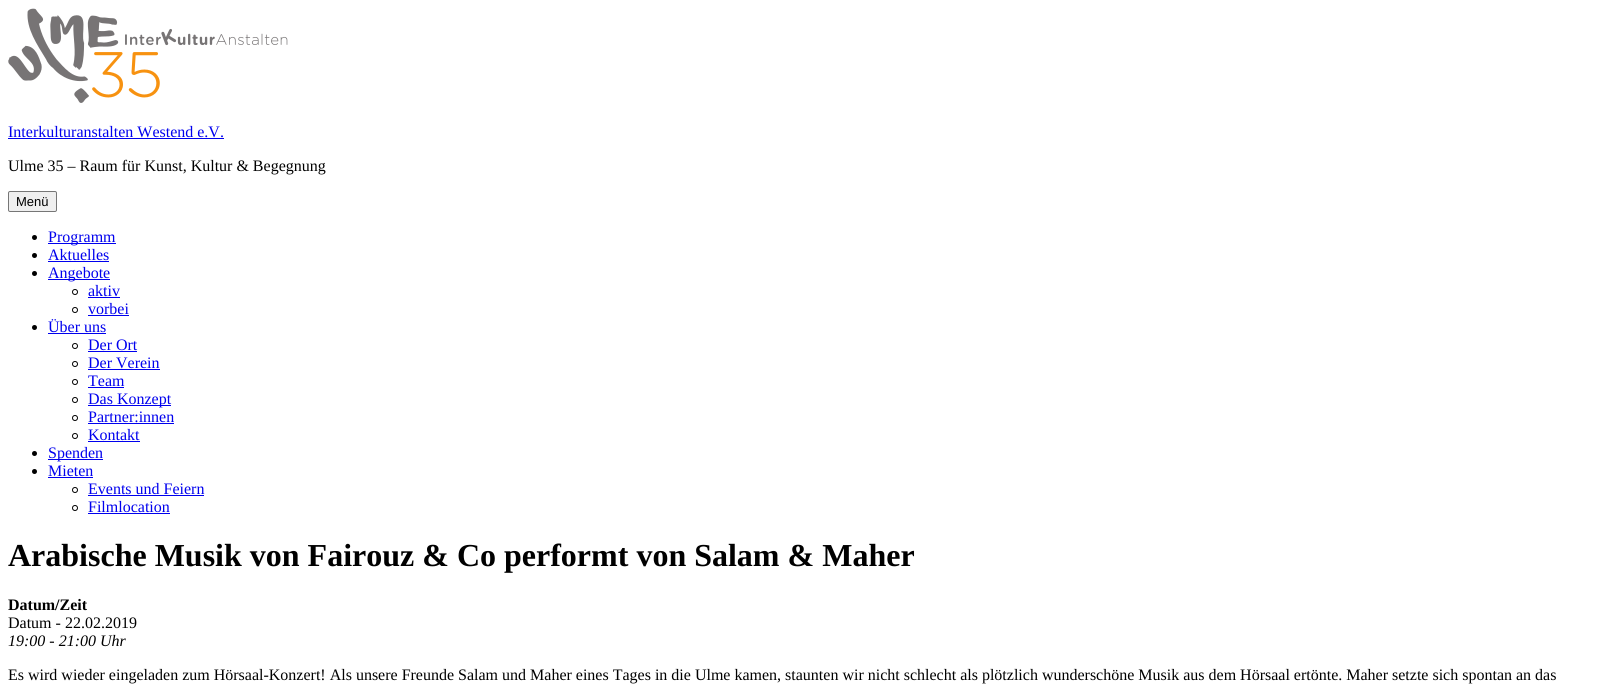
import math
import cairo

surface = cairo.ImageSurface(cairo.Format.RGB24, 1615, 684)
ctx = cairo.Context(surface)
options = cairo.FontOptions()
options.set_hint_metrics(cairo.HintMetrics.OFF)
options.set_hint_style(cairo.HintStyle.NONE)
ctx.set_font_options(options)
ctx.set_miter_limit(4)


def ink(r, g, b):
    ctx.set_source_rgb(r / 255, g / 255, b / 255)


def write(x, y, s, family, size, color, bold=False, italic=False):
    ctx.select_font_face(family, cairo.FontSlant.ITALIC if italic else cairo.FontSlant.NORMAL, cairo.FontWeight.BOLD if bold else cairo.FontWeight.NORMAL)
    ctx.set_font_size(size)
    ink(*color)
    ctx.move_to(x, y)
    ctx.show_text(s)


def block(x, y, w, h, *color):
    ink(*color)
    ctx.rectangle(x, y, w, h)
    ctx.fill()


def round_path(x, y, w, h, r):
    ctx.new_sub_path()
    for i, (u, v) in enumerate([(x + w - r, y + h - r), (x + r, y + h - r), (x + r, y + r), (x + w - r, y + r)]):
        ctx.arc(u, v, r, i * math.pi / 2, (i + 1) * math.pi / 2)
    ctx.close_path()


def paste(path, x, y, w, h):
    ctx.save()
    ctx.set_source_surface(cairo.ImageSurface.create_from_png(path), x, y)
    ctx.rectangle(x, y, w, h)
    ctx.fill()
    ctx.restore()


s1 = dict(family="Liberation Serif", size=16, color=(0, 0, 238))
s2 = dict(family="Liberation Serif", size=16, color=(0, 0, 0))
s3 = dict(family="Liberation Sans", size=13, color=(0, 0, 0))
s4 = dict(family="Liberation Serif", size=32, color=(0, 0, 0), bold=True)
s5 = dict(family="Liberation Serif", size=16, color=(0, 0, 0), bold=True)
s6 = dict(family="Liberation Serif", size=16, color=(0, 0, 0), italic=True)

ink(255, 255, 255)
ctx.paint()
paste("pic1.png", 8, 8, 280, 95)
write(8, 137, "Interkulturanstalten Westend e.V.", **s1)
block(8, 138, 216, 1, 0, 0, 238)
write(8, 171, "Ulme 35 – Raum für Kunst, Kultur & Begegnung", **s2)
ink(239, 239, 239)
round_path(8.5, 191.5, 48, 20, 1.5)
ctx.fill_preserve()
ink(118, 118, 118)
ctx.set_line_width(1)
ctx.stroke()
write(16, 206, "Menü", **s3)
ctx.new_path()
ctx.arc(34.5, 237.5, 2.5, 0, 2 * math.pi)
ctx.fill()
block(48, 243, 68, 1, 0, 0, 238)
write(48, 242, "Programm", **s1)
ink(0, 0, 0)
ctx.new_path()
ctx.arc(34.5, 255.5, 2.5, 0, 2 * math.pi)
ctx.fill()
write(48, 260, "Aktuelles", **s1)
block(48, 261, 61, 1, 0, 0, 238)
ink(0, 0, 0)
ctx.new_path()
ctx.arc(34.5, 273.5, 2.5, 0, 2 * math.pi)
ctx.fill()
block(48, 279, 62, 1, 0, 0, 238)
write(48, 278, "Angebote", **s1)
ctx.new_path()
ctx.arc(75, 292, 2.5, 0, 2 * math.pi)
ink(0, 0, 0)
ctx.stroke()
write(88, 296, "aktiv", **s1)
block(88, 297, 32, 1, 0, 0, 238)
ctx.new_path()
ctx.arc(75, 310, 2.5, 0, 2 * math.pi)
ink(0, 0, 0)
ctx.stroke()
write(88, 314, "vorbei", **s1)
block(88, 315, 41, 1, 0, 0, 238)
ink(0, 0, 0)
ctx.new_path()
ctx.arc(34.5, 327.5, 2.5, 0, 2 * math.pi)
ctx.fill()
write(48, 332, "Über uns", **s1)
block(48, 333, 58, 1, 0, 0, 238)
ctx.new_path()
ctx.arc(75, 346, 2.5, 0, 2 * math.pi)
ink(0, 0, 0)
ctx.stroke()
write(88, 350, "Der Ort", **s1)
block(88, 351, 49, 1, 0, 0, 238)
ctx.new_path()
ctx.arc(75, 364, 2.5, 0, 2 * math.pi)
ink(0, 0, 0)
ctx.stroke()
write(88, 368, "Der Verein", **s1)
block(88, 369, 72, 1, 0, 0, 238)
ctx.new_path()
ctx.arc(75, 382, 2.5, 0, 2 * math.pi)
ink(0, 0, 0)
ctx.stroke()
write(88, 386, "Team", **s1)
block(88, 387, 36, 1, 0, 0, 238)
ctx.new_path()
ctx.arc(75, 400, 2.5, 0, 2 * math.pi)
ink(0, 0, 0)
ctx.stroke()
block(88, 405, 83, 1, 0, 0, 238)
write(88, 404, "Das Konzept", **s1)
ctx.new_path()
ctx.arc(75, 418, 2.5, 0, 2 * math.pi)
ink(0, 0, 0)
ctx.stroke()
write(88, 422, "Partner:innen", **s1)
block(88, 423, 86, 1, 0, 0, 238)
ctx.new_path()
ctx.arc(75, 436, 2.5, 0, 2 * math.pi)
ink(0, 0, 0)
ctx.stroke()
write(88, 440, "Kontakt", **s1)
block(88, 441, 52, 1, 0, 0, 238)
ink(0, 0, 0)
ctx.new_path()
ctx.arc(34.5, 453.5, 2.5, 0, 2 * math.pi)
ctx.fill()
block(48, 459, 55, 1, 0, 0, 238)
write(48, 458, "Spenden", **s1)
ink(0, 0, 0)
ctx.new_path()
ctx.arc(34.5, 471.5, 2.5, 0, 2 * math.pi)
ctx.fill()
write(48, 476, "Mieten", **s1)
block(48, 477, 45, 1, 0, 0, 238)
ctx.new_path()
ctx.arc(75, 490, 2.5, 0, 2 * math.pi)
ink(0, 0, 0)
ctx.stroke()
write(88, 494, "Events und Feiern", **s1)
block(88, 495, 116, 1, 0, 0, 238)
ctx.new_path()
ctx.arc(75, 508, 2.5, 0, 2 * math.pi)
ink(0, 0, 0)
ctx.stroke()
write(88, 512, "Filmlocation", **s1)
block(88, 513, 82, 1, 0, 0, 238)
write(8, 566, "Arabische Musik von Fairouz & Co performt von Salam & Maher", **s4)
write(8, 610, "Datum/Zeit", **s5)
write(8, 628, "Datum - 22.02.2019", **s2)
write(8, 646, "19:00 - 21:00 Uhr", **s6)
write(8, 680, "Es wird wieder eingeladen zum Hörsaal-Konzert! Als unsere Freunde Salam und Maher eines Tages in die Ulme kamen, staunten wir nicht schlecht als plötzlich wunderschöne Musik aus dem Hörsaal ertönte. Maher setzte sich spontan an das", **s2)
surface.write_to_png("screenshot.png")
